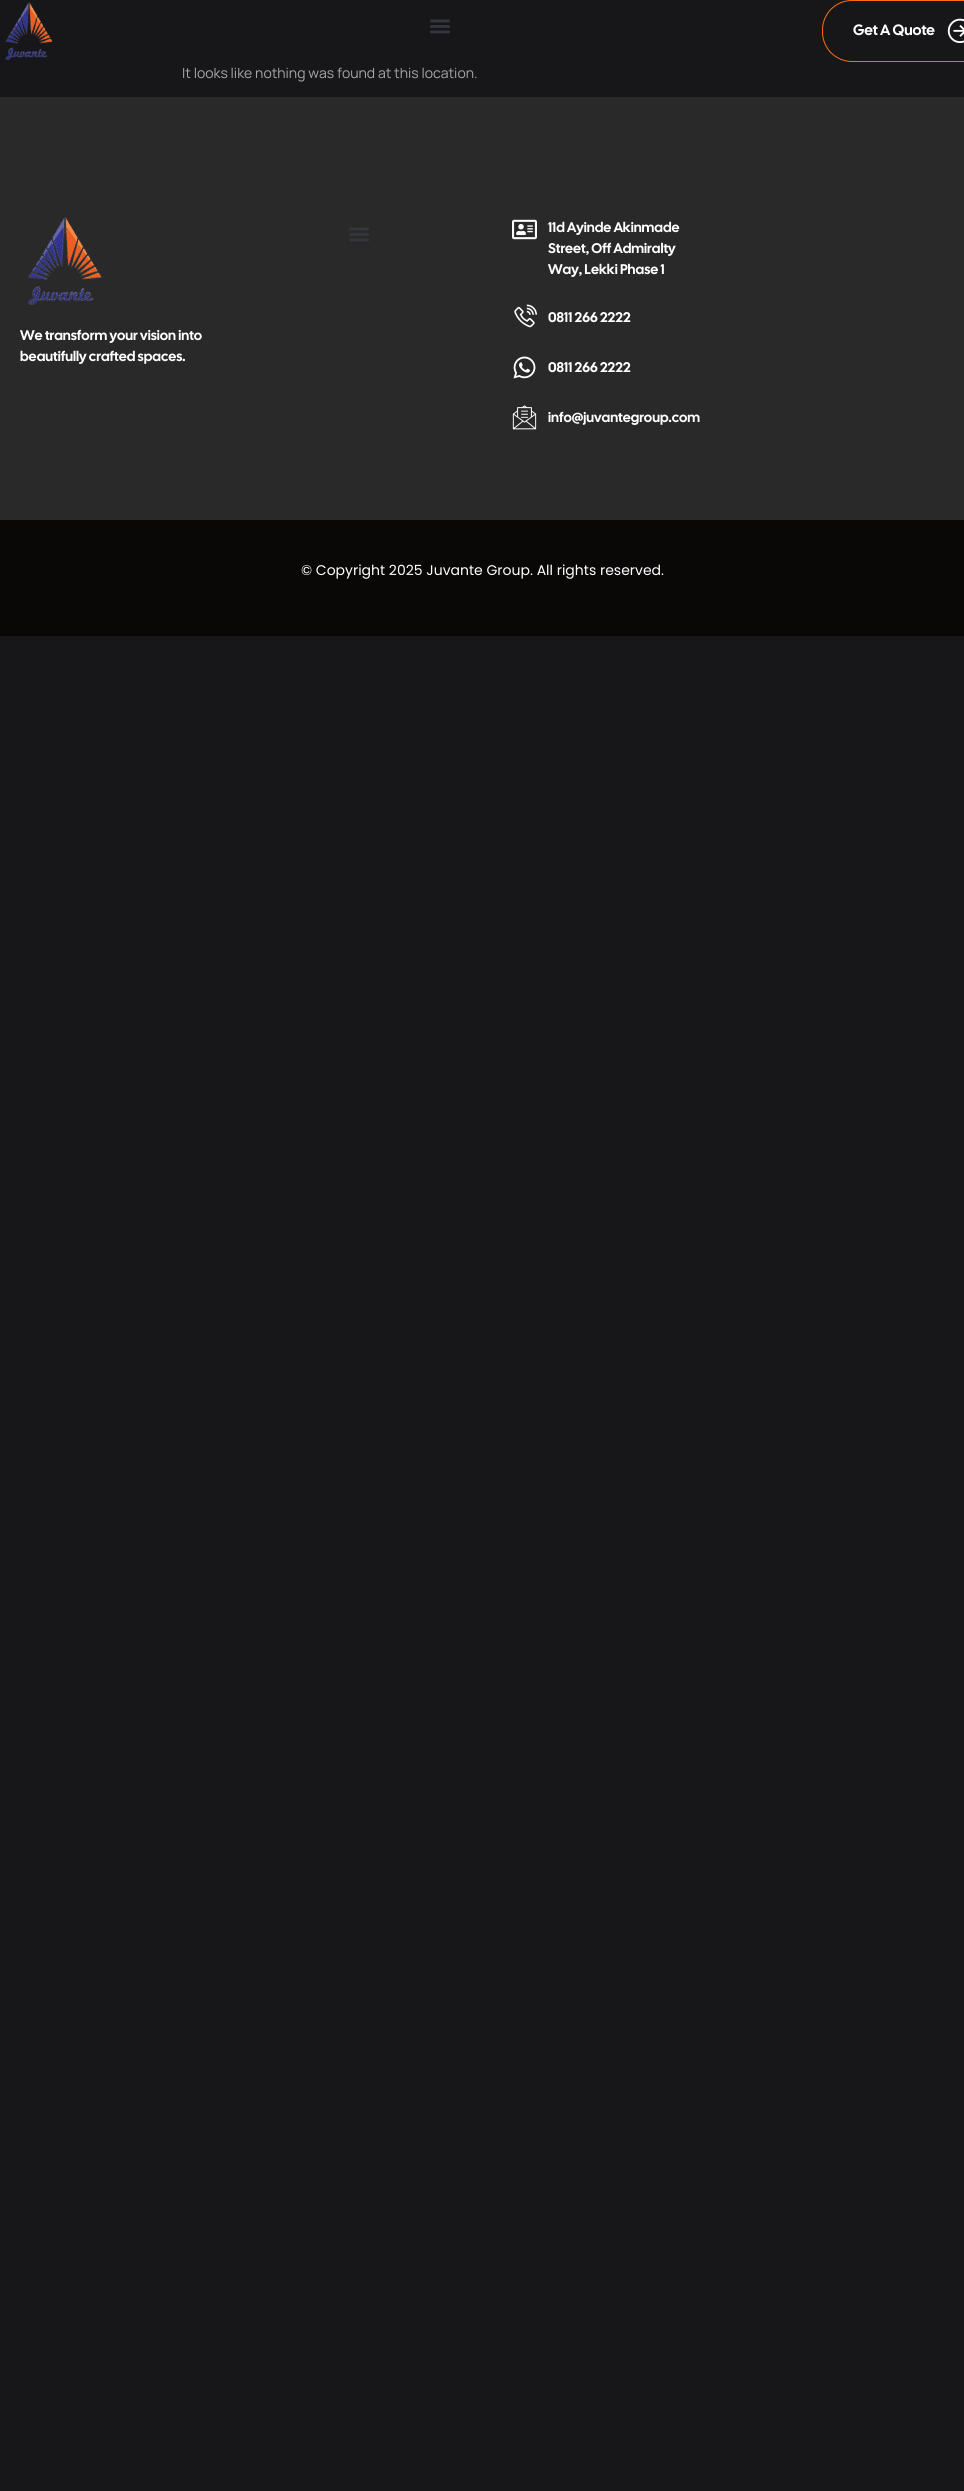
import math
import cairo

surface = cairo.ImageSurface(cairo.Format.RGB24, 964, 2491)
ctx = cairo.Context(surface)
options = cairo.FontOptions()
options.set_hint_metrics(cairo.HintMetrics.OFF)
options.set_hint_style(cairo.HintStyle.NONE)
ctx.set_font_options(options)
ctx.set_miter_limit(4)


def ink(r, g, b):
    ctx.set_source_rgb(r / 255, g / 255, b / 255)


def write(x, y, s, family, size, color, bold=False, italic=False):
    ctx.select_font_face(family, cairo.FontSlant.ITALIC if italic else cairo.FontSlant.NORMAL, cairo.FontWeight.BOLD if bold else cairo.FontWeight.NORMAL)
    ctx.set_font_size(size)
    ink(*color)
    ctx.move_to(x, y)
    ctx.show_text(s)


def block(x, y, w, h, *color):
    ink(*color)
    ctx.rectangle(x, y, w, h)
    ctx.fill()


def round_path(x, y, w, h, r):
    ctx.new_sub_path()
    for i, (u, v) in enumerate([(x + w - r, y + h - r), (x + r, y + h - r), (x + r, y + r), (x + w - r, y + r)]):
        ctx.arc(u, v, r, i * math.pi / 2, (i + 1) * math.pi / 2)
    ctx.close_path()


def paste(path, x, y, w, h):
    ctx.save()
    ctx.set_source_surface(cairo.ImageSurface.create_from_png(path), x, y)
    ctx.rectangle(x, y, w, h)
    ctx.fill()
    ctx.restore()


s1 = dict(family="Cal Sans", size=15, color=(255, 255, 255))
s2 = dict(family="Manrope", size=14, color=(167, 167, 167))
s3 = dict(family="Cal Sans", size=14, color=(255, 255, 255))
s4 = dict(family="Poppins", size=14, color=(255, 255, 255))

ink(23, 23, 25)
ctx.paint()
paste("pic1.png", 5, 2, 48, 58)
paste("pic2.png", 430, 19, 20, 15)
round_path(822.5, 0.5, 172, 61, 29.5)
ink(252, 108, 20)
ctx.set_line_width(1)
ctx.stroke()
write(853, 35, "Get A Quote", **s1)
paste("pic3.png", 947, 18, 17, 25)
write(182, 78, "It looks like nothing was found at this location.", **s2)
block(0, 97, 964, 423, 42, 41, 41)
paste("pic4.png", 349, 227, 20, 15)
paste("pic5.png", 512, 219, 25, 21)
write(548, 232, "11d Ayinde Akinmade", **s3)
write(548, 253, "Street, Off Admiralty", **s3)
write(548, 274, "Way, Lekki Phase 1", **s3)
paste("pic6.png", 514, 304, 23, 24)
write(548, 322, "0811 266 2222", **s3)
paste("pic7.png", 513, 356, 23, 23)
write(548, 372, "0811 266 2222", **s3)
paste("pic8.png", 512, 405, 25, 25)
write(548, 422, "info@juvantegroup.com", **s3)
paste("pic9.png", 28, 217, 74, 88)
write(20, 340, "We transform your vision into", **s3)
write(20, 361, "beautifully crafted spaces.", **s3)
block(0, 520, 964, 116, 10, 7, 7)
write(301, 575, "© Copyright 2025 Juvante Group. All rights reserved.", **s4)
surface.write_to_png("screenshot.png")
